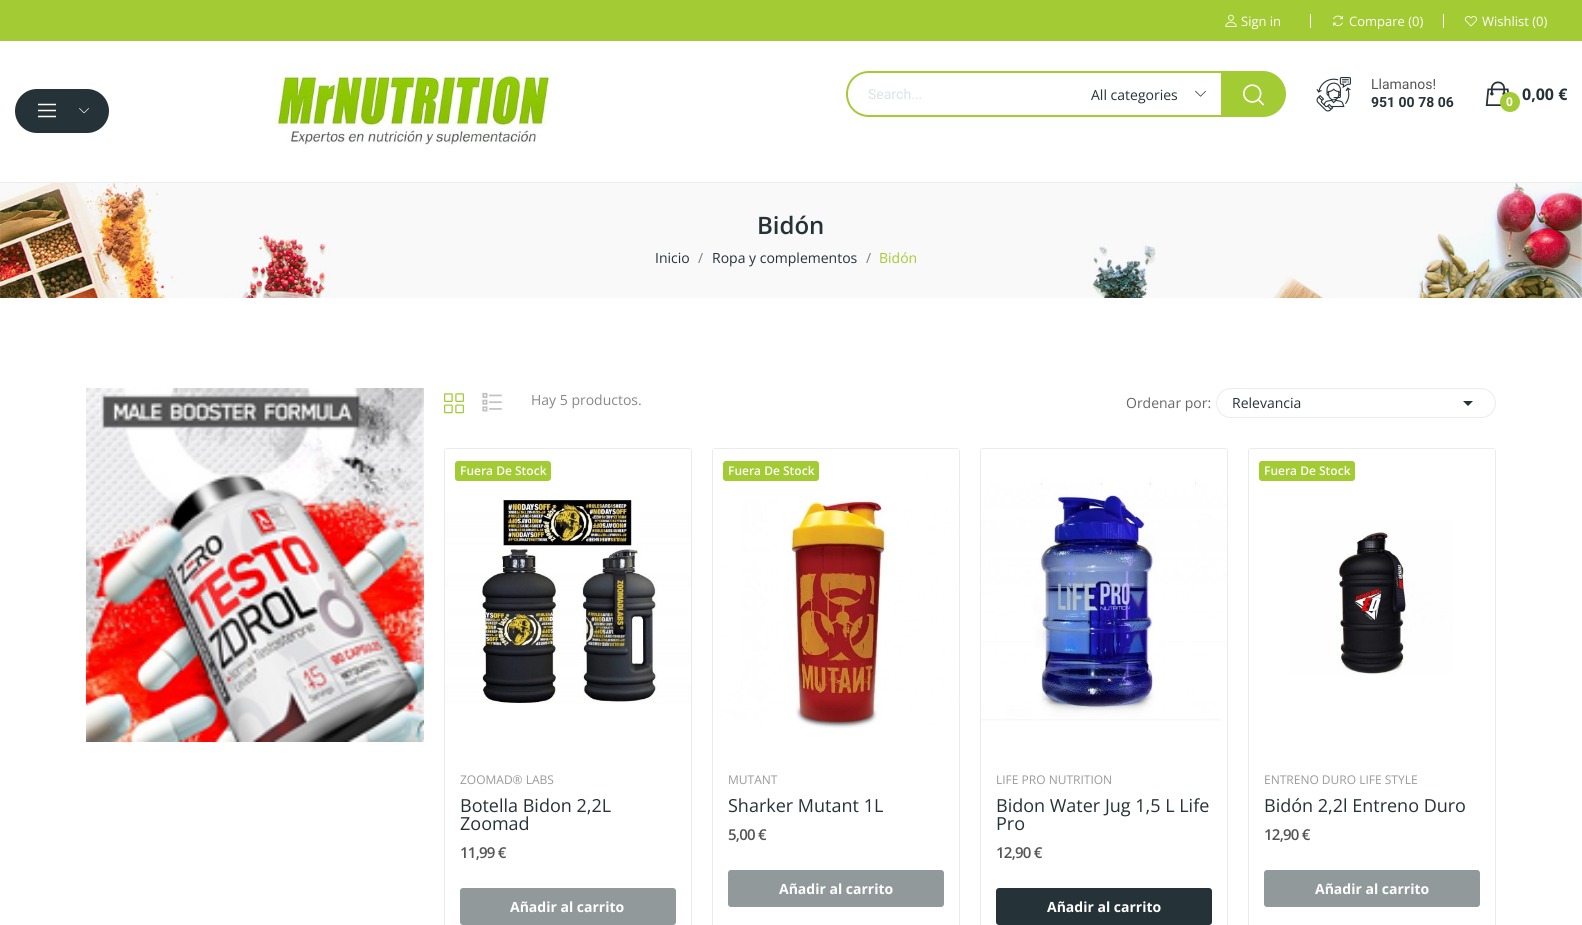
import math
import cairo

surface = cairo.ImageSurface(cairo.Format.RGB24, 1582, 925)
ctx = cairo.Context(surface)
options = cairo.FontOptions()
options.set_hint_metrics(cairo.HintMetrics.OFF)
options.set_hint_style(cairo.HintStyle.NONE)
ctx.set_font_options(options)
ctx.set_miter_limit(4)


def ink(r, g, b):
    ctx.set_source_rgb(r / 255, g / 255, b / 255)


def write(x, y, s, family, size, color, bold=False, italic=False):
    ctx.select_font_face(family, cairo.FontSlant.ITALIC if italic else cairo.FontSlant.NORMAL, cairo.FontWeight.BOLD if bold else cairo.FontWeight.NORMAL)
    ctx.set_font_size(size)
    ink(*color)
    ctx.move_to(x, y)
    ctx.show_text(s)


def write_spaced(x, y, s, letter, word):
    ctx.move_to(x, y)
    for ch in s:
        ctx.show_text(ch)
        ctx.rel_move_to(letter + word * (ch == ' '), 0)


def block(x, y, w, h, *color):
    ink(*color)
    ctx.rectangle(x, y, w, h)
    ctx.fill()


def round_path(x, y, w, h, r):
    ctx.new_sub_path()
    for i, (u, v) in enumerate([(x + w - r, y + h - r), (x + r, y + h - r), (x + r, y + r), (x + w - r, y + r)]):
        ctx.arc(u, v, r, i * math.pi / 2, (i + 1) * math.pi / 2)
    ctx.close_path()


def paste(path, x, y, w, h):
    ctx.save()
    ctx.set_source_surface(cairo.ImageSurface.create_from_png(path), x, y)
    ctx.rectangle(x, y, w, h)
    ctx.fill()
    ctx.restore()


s1 = dict(family="Open Sans", size=13, color=(255, 255, 255))
s2 = dict(family="Roboto", size=14, color=(220, 226, 234))
s3 = dict(family="Open Sans", size=14, color=(37, 50, 55))
s4 = dict(family="Roboto", size=14, color=(85, 85, 85))
s5 = dict(family="Roboto", size=14, color=(37, 50, 55), bold=True)
s6 = dict(family="Open Sans", size=12, color=(255, 255, 255), bold=True)
s7 = dict(family="Open Sans", size=16, color=(37, 50, 55), bold=True)
s8 = dict(family="Open Sans SemiBold", size=24, color=(37, 50, 55))
s9 = dict(family="Open Sans", size=14, color=(122, 122, 122))
s10 = dict(family="Open Sans", size=14, color=(163, 203, 51))
s11 = dict(family="Open Sans", size=14, color=(136, 136, 136))
s12 = dict(family="Open Sans", size=14, color=(102, 102, 102))
s13 = dict(family="Open Sans SemiBold", size=12, color=(255, 255, 255))
s14 = dict(family="Open Sans", size=12, color=(153, 153, 153))
s15 = dict(family="Open Sans", size=18, color=(37, 50, 55))
s16 = dict(family="Open Sans", size=14, color=(255, 255, 255), bold=True)

ink(255, 255, 255)
ctx.paint()
block(0, 182, 1582, 1, 235, 235, 235)
block(0, 0, 1582, 41, 163, 203, 51)
paste("pic1.png", 1225, 14, 12, 13)
write(1241, 26, "Sign in", **s1)
block(1310, 14, 1, 14, 255, 255, 255)
paste("pic2.png", 1333, 15, 10, 12)
write(1349, 26, "Compare (0)", **s1)
block(1443, 14, 1, 14, 255, 255, 255)
paste("pic3.png", 1464, 16, 14, 11)
write(1482, 26, "Wishlist (0)", **s1)
ink(37, 50, 55)
round_path(15, 89, 94, 44, 22)
ctx.fill()
paste("pic4.png", 38, 103, 18, 15)
paste("pic5.png", 79, 108, 10, 6)
paste("pic6.png", 275, 71, 277, 77)
ink(163, 203, 51)
ctx.set_fill_rule(cairo.FillRule.EVEN_ODD)
ctx.new_path()
ctx.move_to(869, 71)
ctx.line_to(1221, 71)
ctx.line_to(1221, 117)
ctx.line_to(869, 117)
ctx.curve_to(856, 117, 846, 107, 846, 94)
ctx.curve_to(846, 81, 856, 71, 869, 71)
ctx.close_path()
ctx.move_to(869, 73)
ctx.line_to(1221, 73)
ctx.line_to(1221, 115)
ctx.line_to(869, 115)
ctx.curve_to(857, 115, 848, 106, 848, 94)
ctx.curve_to(848, 82, 857, 73, 869, 73)
ctx.close_path()
ctx.fill()
write(868, 99, "Search...", **s2)
write(1091, 100, "All categories", **s3)
paste("pic7.png", 1195, 90, 11, 7)
ink(163, 203, 51)
ctx.new_path()
ctx.move_to(1221, 71)
ctx.line_to(1263, 71)
ctx.curve_to(1275.5, 71, 1286, 81.5, 1286, 94)
ctx.curve_to(1286, 106.5, 1275.5, 117, 1263, 117)
ctx.line_to(1221, 117)
ctx.close_path()
ctx.fill()
paste("pic8.png", 1243, 84, 21, 22)
paste("pic9.png", 1316, 77, 35, 35)
write(1371, 89, "Llamanos!", **s4)
write(1371, 107, "951 00 78 06", **s5)
paste("pic10.png", 1485, 81, 24, 25)
ink(163, 203, 51)
ctx.arc(1510, 102, 10, 0, 2 * math.pi)
ctx.fill()
write(1506, 106, "0", **s6)
write(1522, 100, "0,00 €", **s7)
paste("pic11.png", 0, 183, 1582, 115)
write(757, 234, "Bidón", **s8)
write(655, 263, "Inicio", **s3)
write(698, 263, "/", **s9)
write(712, 263, "Ropa y complementos", **s3)
write(866, 263, "/", **s9)
write(879, 263, "Bidón", **s10)
paste("pic12.png", 86, 388, 338, 354)
paste("pic13.png", 444, 393, 20, 21)
paste("pic14.png", 482, 392, 20, 20)
write(531, 405, "Hay 5 productos.", **s11)
write(1126, 408, "Ordenar por:", **s12)
round_path(1216.5, 388.5, 279, 29, 14.5)
ink(235, 235, 235)
ctx.set_line_width(1)
ctx.stroke()
write(1232, 408, "Relevancia", **s3)
ctx.set_fill_rule(cairo.FillRule.WINDING)
ctx.new_path()
ctx.move_to(1463, 401)
ctx.line_to(1473, 401)
ctx.line_to(1468, 406)
ctx.close_path()
ctx.fill()
round_path(444.5, 448.5, 247, 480, 2.5)
ink(235, 235, 235)
ctx.stroke()
paste("pic15.png", 445, 449, 246, 255)
ink(163, 203, 51)
round_path(455, 461, 96, 20, 3)
ctx.fill()
write(460, 475, "Fuera De Stock", **s13)
write(460, 784, "ZOOMAD® LABS", **s14)
write(460, 812, "Botella Bidon 2,2L", **s15)
write(460, 830, "Zoomad", **s15)
ctx.select_font_face("Open Sans SemiBold")
ctx.set_font_size(15)
ink(85, 85, 85)
write_spaced(460, 858, "11,99 €", -0.75, 0)
ink(146, 153, 155)
round_path(460, 888, 216, 37, 3)
ctx.fill()
write(510, 912, "Añadir al carrito", **s16)
round_path(712.5, 448.5, 247, 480, 2.5)
ink(235, 235, 235)
ctx.stroke()
paste("pic16.png", 713, 449, 246, 279)
ink(163, 203, 51)
round_path(723, 461, 96, 20, 3)
ctx.fill()
write(728, 475, "Fuera De Stock", **s13)
write(728, 784, "MUTANT", **s14)
write(728, 812, "Sharker Mutant 1L", **s15)
ctx.select_font_face("Open Sans SemiBold")
ctx.set_font_size(15)
ink(85, 85, 85)
write_spaced(728, 840, "5,00 €", -0.75, 0)
ink(146, 153, 155)
round_path(728, 870, 216, 37, 3)
ctx.fill()
write(779, 894, "Añadir al carrito", **s16)
round_path(980.5, 448.5, 247, 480, 2.5)
ink(235, 235, 235)
ctx.stroke()
paste("pic17.png", 981, 449, 246, 272)
write(996, 784, "LIFE PRO NUTRITION", **s14)
write(996, 812, "Bidon Water Jug 1,5 L Life", **s15)
write(996, 830, "Pro", **s15)
ctx.select_font_face("Open Sans SemiBold")
ctx.set_font_size(15)
ink(85, 85, 85)
write_spaced(996, 858, "12,90 €", -0.75, 0)
ink(37, 50, 55)
round_path(996, 888, 216, 37, 3)
ctx.fill()
write(1047, 912, "Añadir al carrito", **s16)
round_path(1248.5, 448.5, 247, 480, 2.5)
ink(235, 235, 235)
ctx.stroke()
paste("pic18.png", 1249, 449, 246, 226)
ink(163, 203, 51)
round_path(1259, 461, 96, 20, 3)
ctx.fill()
write(1264, 475, "Fuera De Stock", **s13)
write(1264, 784, "ENTRENO DURO LIFE STYLE", **s14)
write(1264, 812, "Bidón 2,2l Entreno Duro", **s15)
ctx.select_font_face("Open Sans SemiBold")
ctx.set_font_size(15)
ink(85, 85, 85)
write_spaced(1264, 840, "12,90 €", -0.75, 0)
ink(146, 153, 155)
round_path(1264, 870, 216, 37, 3)
ctx.fill()
write(1315, 894, "Añadir al carrito", **s16)
surface.write_to_png("screenshot.png")
